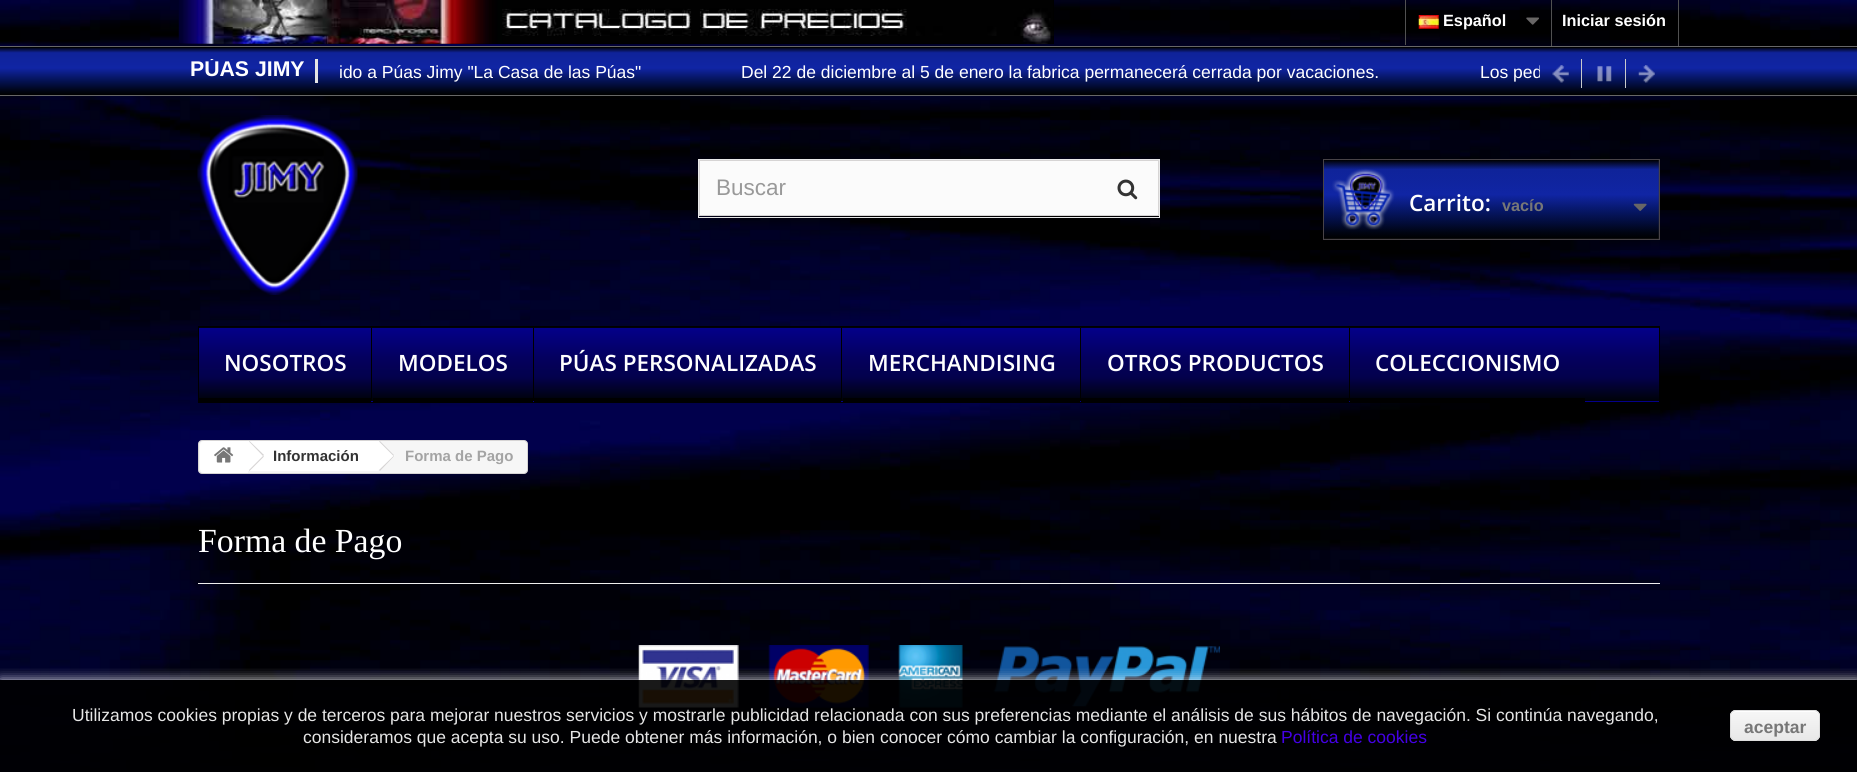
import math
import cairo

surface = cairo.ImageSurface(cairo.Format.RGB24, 1857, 772)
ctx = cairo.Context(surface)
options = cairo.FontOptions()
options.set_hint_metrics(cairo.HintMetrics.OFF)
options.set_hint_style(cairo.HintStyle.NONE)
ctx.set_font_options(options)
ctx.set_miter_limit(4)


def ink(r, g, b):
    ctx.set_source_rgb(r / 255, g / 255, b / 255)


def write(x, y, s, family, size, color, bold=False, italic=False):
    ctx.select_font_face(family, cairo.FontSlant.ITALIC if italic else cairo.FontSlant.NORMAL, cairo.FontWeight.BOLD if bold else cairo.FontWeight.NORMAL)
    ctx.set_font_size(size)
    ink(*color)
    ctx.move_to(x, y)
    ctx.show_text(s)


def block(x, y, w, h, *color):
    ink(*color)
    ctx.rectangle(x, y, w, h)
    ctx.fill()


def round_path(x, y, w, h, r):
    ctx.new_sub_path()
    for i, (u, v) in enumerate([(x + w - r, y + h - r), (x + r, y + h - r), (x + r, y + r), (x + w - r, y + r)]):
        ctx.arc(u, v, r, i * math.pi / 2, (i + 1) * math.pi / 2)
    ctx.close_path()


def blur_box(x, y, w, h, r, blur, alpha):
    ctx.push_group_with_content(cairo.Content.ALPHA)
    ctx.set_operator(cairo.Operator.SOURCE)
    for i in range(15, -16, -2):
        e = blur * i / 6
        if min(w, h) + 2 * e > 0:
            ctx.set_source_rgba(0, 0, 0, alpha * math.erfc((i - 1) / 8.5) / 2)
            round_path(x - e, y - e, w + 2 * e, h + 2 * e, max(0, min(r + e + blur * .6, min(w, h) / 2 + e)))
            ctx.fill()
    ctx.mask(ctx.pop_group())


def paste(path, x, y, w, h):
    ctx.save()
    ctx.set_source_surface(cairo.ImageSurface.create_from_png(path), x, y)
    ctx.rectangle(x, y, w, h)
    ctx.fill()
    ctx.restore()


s1 = dict(family="Liberation Sans", size=16.25, color=(255, 255, 255), bold=True)
s2 = dict(family="Liberation Sans", size=21.25, color=(255, 255, 255), bold=True)
s3 = dict(family="Liberation Sans", size=17.5, color=(255, 255, 255))
s4 = dict(family="Liberation Sans", size=22.5, color=(153, 153, 153))
s5 = dict(family="Open Sans SemiBold", size=22.5, color=(255, 255, 255))
s6 = dict(family="Liberation Sans", size=16.25, color=(119, 119, 119), bold=True)
s7 = dict(family="Liberation Sans", size=15, color=(51, 51, 51), bold=True)
s8 = dict(family="Liberation Sans", size=15, color=(164, 164, 164), bold=True)
s9 = dict(family="Liberation Serif", size=33.75, color=(255, 255, 255))
s10 = dict(family="Liberation Sans", size=17.5, color=(230, 230, 230))
s11 = dict(family="Liberation Sans", size=17.5, color=(68, 0, 230))
s12 = dict(family="Liberation Sans", size=17.5, color=(119, 119, 119), bold=True)

ink(255, 255, 255)
ctx.paint()
paste("pic1.png", 0, 0, 1857, 772)
block(179, 0, 875, 44, 0, 0, 0)
paste("pic2.png", 178, 0, 876, 44)
block(1405, 0, 1, 45, 81, 81, 81)
paste("pic3.png", 1418, 15, 21, 14)
write(1443, 26, "Español", **s1)
paste("pic4.png", 1526, 17, 13, 8)
block(1678, 0, 1, 46, 81, 81, 81)
block(1551, 0, 1, 46, 81, 81, 81)
write(1562, 26, "Iniciar sesión", **s1)
gradient = cairo.LinearGradient(929, 0, 929, 48)
gradient.add_color_stop_rgba(0, 0, 0, 0, 1)
gradient.add_color_stop_rgba(0.12, 0.059, 0.137, 0.6, 1)
gradient.add_color_stop_rgba(0.44, 0.063, 0.145, 0.643, 1)
gradient.add_color_stop_rgba(0.65, 0.024, 0.086, 0.392, 1)
gradient.add_color_stop_rgba(0.8, 0.008, 0.047, 0.224, 1)
gradient.add_color_stop_rgba(0.92, 0, 0.016, 0.071, 1)
gradient.add_color_stop_rgba(1, 0, 0, 0, 1)
ctx.set_source(gradient)
ctx.rectangle(0, 47, 1740, 1)
ctx.fill()
gradient = cairo.LinearGradient(929, 47, 929, 95)
gradient.add_color_stop_rgba(0, 0, 0, 0, 1)
gradient.add_color_stop_rgba(0.12, 0.059, 0.137, 0.6, 1)
gradient.add_color_stop_rgba(0.44, 0.063, 0.145, 0.643, 1)
gradient.add_color_stop_rgba(0.65, 0.024, 0.086, 0.392, 1)
gradient.add_color_stop_rgba(0.8, 0.008, 0.047, 0.224, 1)
gradient.add_color_stop_rgba(0.92, 0, 0.016, 0.071, 1)
gradient.add_color_stop_rgba(1, 0, 0, 0, 1)
ctx.set_source(gradient)
ctx.rectangle(0, 48, 1857, 47)
ctx.fill()
block(0, 46, 1857, 1, 103, 103, 103)
block(0, 95, 1857, 1, 103, 103, 103)
block(315, 59, 3, 24, 228, 229, 229)
ctx.save()
ctx.rectangle(179, 59, 136, 24)
ctx.clip()
write(190, 76, "PÚAS JIMY", **s2)
ctx.restore()
write(339, 78, "ido a Púas Jimy \"La Casa de las Púas\"", **s3)
write(741, 78, "Del 22 de diciembre al 5 de enero la fabrica permanecerá cerrada por vacaciones.", **s3)
ctx.save()
ctx.rectangle(336, 59, 1204, 35)
ctx.clip()
write(1480, 78, "Los ped", **s3)
ctx.restore()
paste("pic5.png", 1552, 65, 17, 18)
block(1581, 59, 1, 29, 201, 202, 204)
paste("pic6.png", 1597, 66, 15, 16)
paste("pic7.png", 1638, 65, 17, 18)
block(1625, 59, 1, 29, 201, 202, 204)
paste("pic8.png", 197, 115, 161, 180)
ctx.rectangle(698.5, 159.5, 461, 58)
ink(233, 233, 233)
ctx.set_line_width(1)
ctx.stroke()
block(700, 161, 396, 54, 251, 251, 251)
ctx.rectangle(699.5, 160.5, 459, 55)
ink(214, 212, 212)
ctx.stroke()
write(716, 195, "Buscar", **s4)
block(1096, 161, 62, 54, 251, 251, 251)
paste("pic9.png", 1117, 179, 21, 21)
block(1324, 160, 335, 79, 51, 51, 51)
paste("pic10.png", 1324, 160, 335, 79)
ctx.rectangle(1323.5, 159.5, 336, 80)
ink(72, 67, 71)
ctx.stroke()
write(1409, 211, "Carrito:", **s5)
write(1502, 211, "vacío", **s6)
paste("pic11.png", 1633, 203, 14, 8)
gradient = cairo.LinearGradient(929, 254, 929, 328)
gradient.add_color_stop_rgba(0, 0.016, 0, 0.545, 1)
gradient.add_color_stop_rgba(0.42, 0.016, 0, 0.369, 1)
gradient.add_color_stop_rgba(0.68, 0.012, 0.004, 0.298, 1)
gradient.add_color_stop_rgba(1, 0, 0.008, 0.027, 1)
ctx.set_source(gradient)
ctx.rectangle(198, 327, 1462, 1)
ctx.fill()
gradient = cairo.LinearGradient(929, 327, 929, 401)
gradient.add_color_stop_rgba(0, 0.016, 0, 0.545, 1)
gradient.add_color_stop_rgba(0.42, 0.016, 0, 0.369, 1)
gradient.add_color_stop_rgba(0.68, 0.012, 0.004, 0.298, 1)
gradient.add_color_stop_rgba(1, 0, 0.008, 0.027, 1)
ctx.set_source(gradient)
ctx.rectangle(199, 328, 1460, 73)
ctx.fill()
gradient = cairo.LinearGradient(929, 401, 929, 475)
gradient.add_color_stop_rgba(0, 0.016, 0, 0.545, 1)
gradient.add_color_stop_rgba(0.42, 0.016, 0, 0.369, 1)
gradient.add_color_stop_rgba(0.68, 0.012, 0.004, 0.298, 1)
gradient.add_color_stop_rgba(1, 0, 0.008, 0.027, 1)
ctx.set_source(gradient)
ctx.rectangle(371, 401, 1289, 1)
ctx.fill()
ctx.rectangle(198.5, 326.5, 1461, 76)
ink(0, 0, 0)
ctx.stroke()
block(371, 328, 1, 73, 0, 0, 0)
block(199, 398, 172, 4, 0, 0, 0)
write(224, 371, "NOSOTROS", **s5)
block(533, 328, 1, 73, 0, 0, 0)
block(373, 398, 160, 4, 0, 0, 0)
write(398, 371, "MODELOS", **s5)
block(841, 328, 1, 73, 0, 0, 0)
block(534, 398, 307, 4, 0, 0, 0)
write(559, 371, "PÚAS PERSONALIZADAS", **s5)
block(1080, 328, 1, 73, 0, 0, 0)
block(843, 398, 237, 4, 0, 0, 0)
write(868, 371, "MERCHANDISING", **s5)
block(1349, 328, 1, 73, 0, 0, 0)
block(1081, 398, 268, 4, 0, 0, 0)
write(1107, 371, "OTROS PRODUCTOS", **s5)
block(1350, 398, 235, 4, 0, 0, 0)
write(1375, 371, "COLECCIONISMO", **s5)
ink(246, 246, 246)
round_path(198.5, 440.5, 329, 33, 3.5)
ctx.fill_preserve()
ink(214, 212, 212)
ctx.stroke()
ink(255, 255, 255)
ctx.new_path()
ctx.move_to(204, 441)
ctx.line_to(248, 441)
ctx.line_to(248, 473)
ctx.line_to(204, 473)
ctx.curve_to(202, 473, 200, 471, 200, 469)
ctx.line_to(200, 445)
ctx.curve_to(200, 443, 202, 441, 204, 441)
ctx.close_path()
ctx.fill()
paste("pic12.png", 214, 447, 20, 16)
block(248, 441, 130, 30, 255, 255, 255)
ink(214, 212, 212)
ctx.new_path()
ctx.move_to(249.5, 441)
ctx.line_to(264, 455)
ctx.line_to(263, 456)
ctx.line_to(249, 441.5)
ctx.close_path()
ctx.move_to(263, 456)
ctx.line_to(264, 456.5)
ctx.line_to(249.5, 471)
ctx.line_to(249, 470)
ctx.close_path()
ctx.fill()
write(273, 461, "Información", **s7)
ink(255, 255, 255)
ctx.new_path()
ctx.move_to(381, 441.5)
ctx.line_to(380.5, 441)
ctx.line_to(378, 441)
ctx.line_to(377.5, 441.5)
ctx.line_to(365, 454)
ctx.curve_to(364, 455, 364, 456.5, 365, 457.5)
ctx.line_to(377.5, 470)
ctx.curve_to(378.5, 471, 380, 471, 381, 470)
ctx.line_to(393.5, 457.5)
ctx.curve_to(394.5, 456.5, 394.5, 455, 393.5, 454)
ctx.close_path()
ctx.fill()
ink(214, 212, 212)
ctx.new_path()
ctx.move_to(380, 441)
ctx.line_to(394, 455)
ctx.line_to(393.5, 456)
ctx.line_to(379, 441.5)
ctx.close_path()
ctx.move_to(393.5, 456)
ctx.line_to(394, 456.5)
ctx.line_to(380, 471)
ctx.line_to(379, 470)
ctx.close_path()
ctx.fill()
write(405, 461, "Forma de Pago", **s8)
write(198, 552, "Forma de Pago", **s9)
block(198, 583, 1462, 1, 238, 238, 238)
paste("pic13.png", 638, 645, 582, 63)
ctx.save()
ctx.rectangle(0, 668, 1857, 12)
ctx.clip()
ink(255, 255, 255)
blur_box(0, 680, 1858, 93, 0, 6, 0.9)
ctx.restore()
ctx.set_source_rgba(0, 0, 0, 0.9)
ctx.rectangle(0, 680, 1857, 92)
ctx.fill()
write(72, 721, "Utilizamos cookies propias y de terceros para mejorar nuestros servicios y mostrarle publicidad relacionada con sus preferencias mediante el análisis de sus hábitos de navegación. Si continúa navegando,", **s10)
write(303, 743, "consideramos que acepta su uso. Puede obtener más información, o bien conocer cómo cambiar la configuración, en nuestra", **s10)
write(1281, 743, "Política de cookies", **s11)
ink(224, 224, 224)
round_path(1730, 710, 90, 31, 6)
ctx.fill()
ctx.save()
round_path(1730, 710, 90, 31, 6)
ctx.clip()
gradient = cairo.LinearGradient(1731, 683, 1731, 711)
gradient.add_color_stop_rgba(0.05, 0.976, 0.976, 0.976, 0.9)
gradient.add_color_stop_rgba(1, 0.914, 0.914, 0.914, 0.9)
ctx.set_source(gradient)
ctx.rectangle(1730, 710, 90, 1)
ctx.fill()
gradient = cairo.LinearGradient(1731, 711, 1731, 740)
gradient.add_color_stop_rgba(0.05, 0.976, 0.976, 0.976, 0.9)
gradient.add_color_stop_rgba(1, 0.914, 0.914, 0.914, 0.9)
ctx.set_source(gradient)
ctx.rectangle(1730, 711, 90, 29)
ctx.fill()
gradient = cairo.LinearGradient(1731, 740, 1731, 769)
gradient.add_color_stop_rgba(0.05, 0.976, 0.976, 0.976, 0.9)
gradient.add_color_stop_rgba(1, 0.914, 0.914, 0.914, 0.9)
ctx.set_source(gradient)
ctx.rectangle(1730, 740, 90, 1)
ctx.fill()
ctx.restore()
ink(254, 254, 254)
ctx.new_path()
ctx.move_to(1736, 712)
ctx.line_to(1814, 712)
ctx.curve_to(1817, 712, 1819, 715, 1819, 718)
ctx.curve_to(1819, 708, 1809, 711, 1801, 711)
ctx.line_to(1749, 711)
ctx.curve_to(1741, 711, 1731, 708, 1731, 718)
ctx.curve_to(1731, 715, 1733, 712, 1736, 712)
ctx.close_path()
ctx.fill()
round_path(1730.5, 710.5, 89, 30, 5.5)
ctx.set_source_rgba(0.863, 0.863, 0.863, 0.9)
ctx.stroke()
write(1744, 733, "aceptar", **s12)
surface.write_to_png("screenshot.png")
